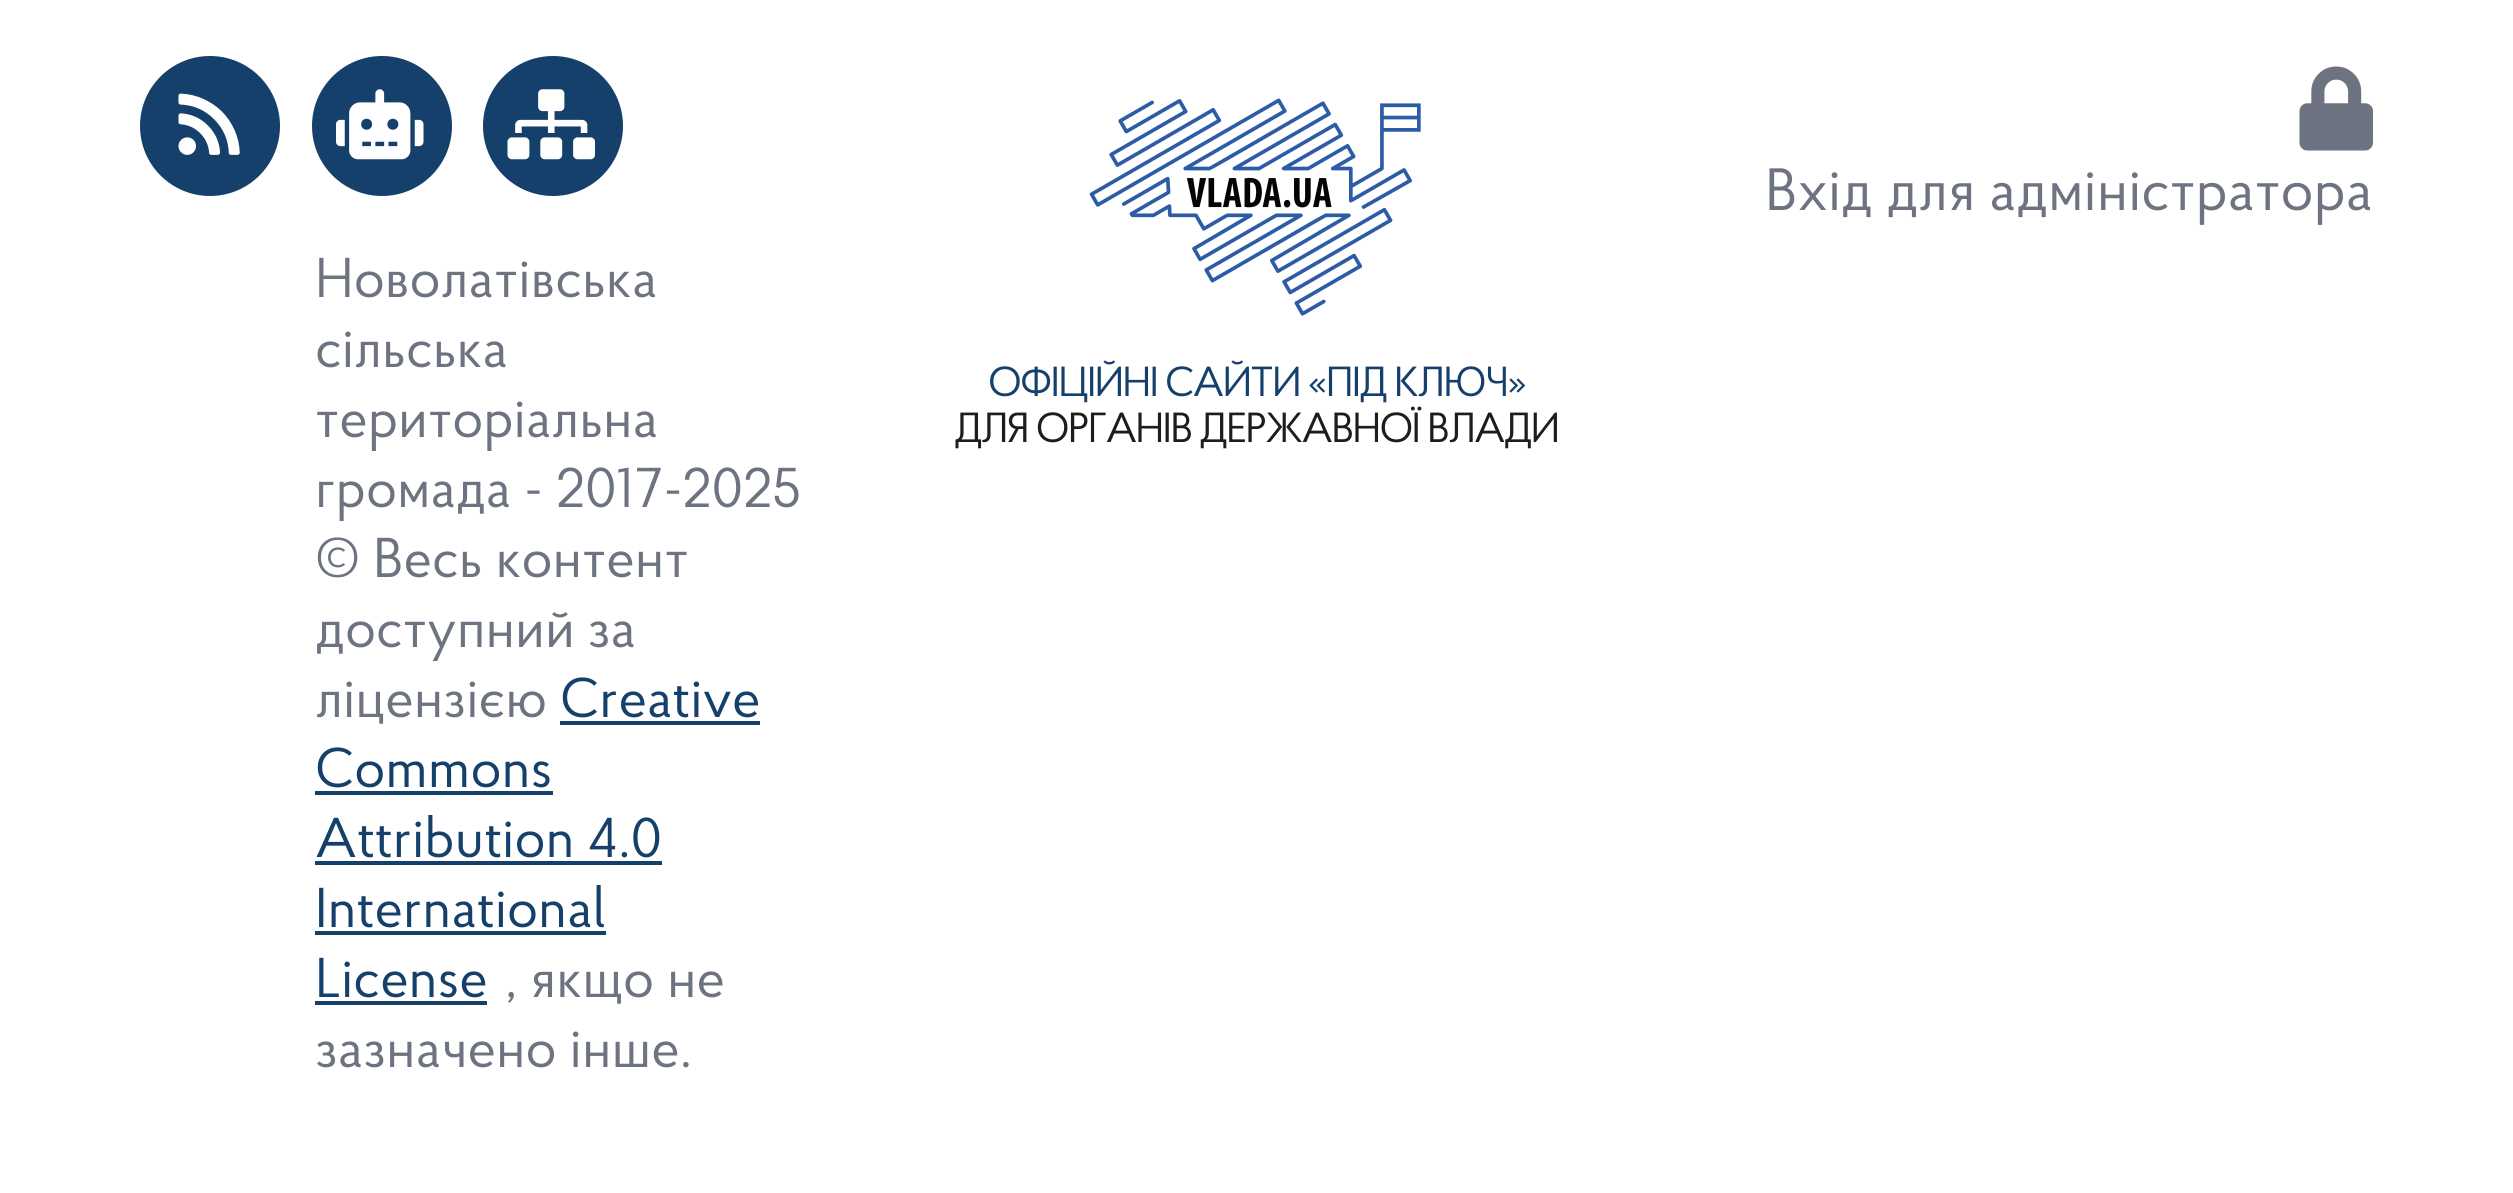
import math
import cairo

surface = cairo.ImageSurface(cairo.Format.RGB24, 2513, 1193)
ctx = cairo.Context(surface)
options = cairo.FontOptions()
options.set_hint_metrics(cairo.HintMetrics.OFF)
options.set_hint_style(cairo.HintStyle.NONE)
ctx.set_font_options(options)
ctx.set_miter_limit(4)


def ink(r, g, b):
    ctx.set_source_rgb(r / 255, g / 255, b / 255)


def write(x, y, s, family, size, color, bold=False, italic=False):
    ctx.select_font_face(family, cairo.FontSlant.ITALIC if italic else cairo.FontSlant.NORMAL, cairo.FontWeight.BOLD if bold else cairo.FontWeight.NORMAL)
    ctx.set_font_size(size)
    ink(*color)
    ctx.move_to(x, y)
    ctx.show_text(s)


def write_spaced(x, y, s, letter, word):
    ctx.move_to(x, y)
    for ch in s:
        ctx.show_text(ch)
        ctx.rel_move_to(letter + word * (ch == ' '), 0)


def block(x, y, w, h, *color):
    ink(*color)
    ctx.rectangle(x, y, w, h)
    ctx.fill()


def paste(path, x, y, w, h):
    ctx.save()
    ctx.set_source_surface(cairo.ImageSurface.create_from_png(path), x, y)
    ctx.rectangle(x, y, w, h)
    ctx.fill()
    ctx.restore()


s1 = dict(family="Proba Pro", size=59.5, color=(109, 115, 129))
s2 = dict(family="Proba Pro", size=56, color=(109, 115, 129))
s3 = dict(family="Proba Pro", size=56, color=(22, 64, 108))

ink(255, 255, 255)
ctx.paint()
paste("pic1.png", 2299, 66, 74, 85)
write(1765, 210, "Вхід для адміністратора", **s1)
ink(22, 64, 108)
ctx.new_path()
ctx.arc(210, 126, 70, 0, 2 * math.pi)
ctx.fill()
paste("pic2.png", 178, 93, 62, 62)
ctx.arc(382, 126, 70, 0, 2 * math.pi)
ctx.fill()
paste("pic3.png", 336, 89, 88, 71)
ctx.arc(553, 126, 70, 0, 2 * math.pi)
ctx.fill()
paste("pic4.png", 507, 89, 88, 71)
write(315, 297, "Новолатівська", **s2)
write(315, 367, "сільська", **s2)
write(315, 437, "територіальна", **s2)
write(315, 507, "громада - 2017-2025", **s2)
write(315, 577, "© Весь контент", **s2)
write(315, 647, "доступний за", **s2)
write(315, 717, "ліцензією", **s2)
write(560, 717, "Creative", **s3)
block(560, 721, 200, 4, 22, 64, 108)
write(315, 787, "Commons", **s3)
block(315, 791, 238, 4, 22, 64, 108)
write(315, 857, "Attribution 4.0", **s3)
block(315, 861, 347, 4, 22, 64, 108)
write(315, 927, "International", **s3)
block(315, 931, 291, 4, 22, 64, 108)
write(315, 997, "License", **s3)
block(315, 1001, 172, 4, 22, 64, 108)
write(505, 997, ", якщо не", **s2)
write(315, 1067, "зазначено інше.", **s2)
paste("pic5.png", 1089, 98, 332, 218)
ctx.set_font_size(42)
ink(22, 64, 108)
write_spaced(988, 396, "ОФІЦІЙНІ САЙТИ «ПІД КЛЮЧ»", -1.75, 0)
ink(29, 29, 27)
write_spaced(954, 442, "ДЛЯ ОРГАНІВ ДЕРЖАВНОЇ ВЛАДИ", -1.75, 0)
surface.write_to_png("screenshot.png")
